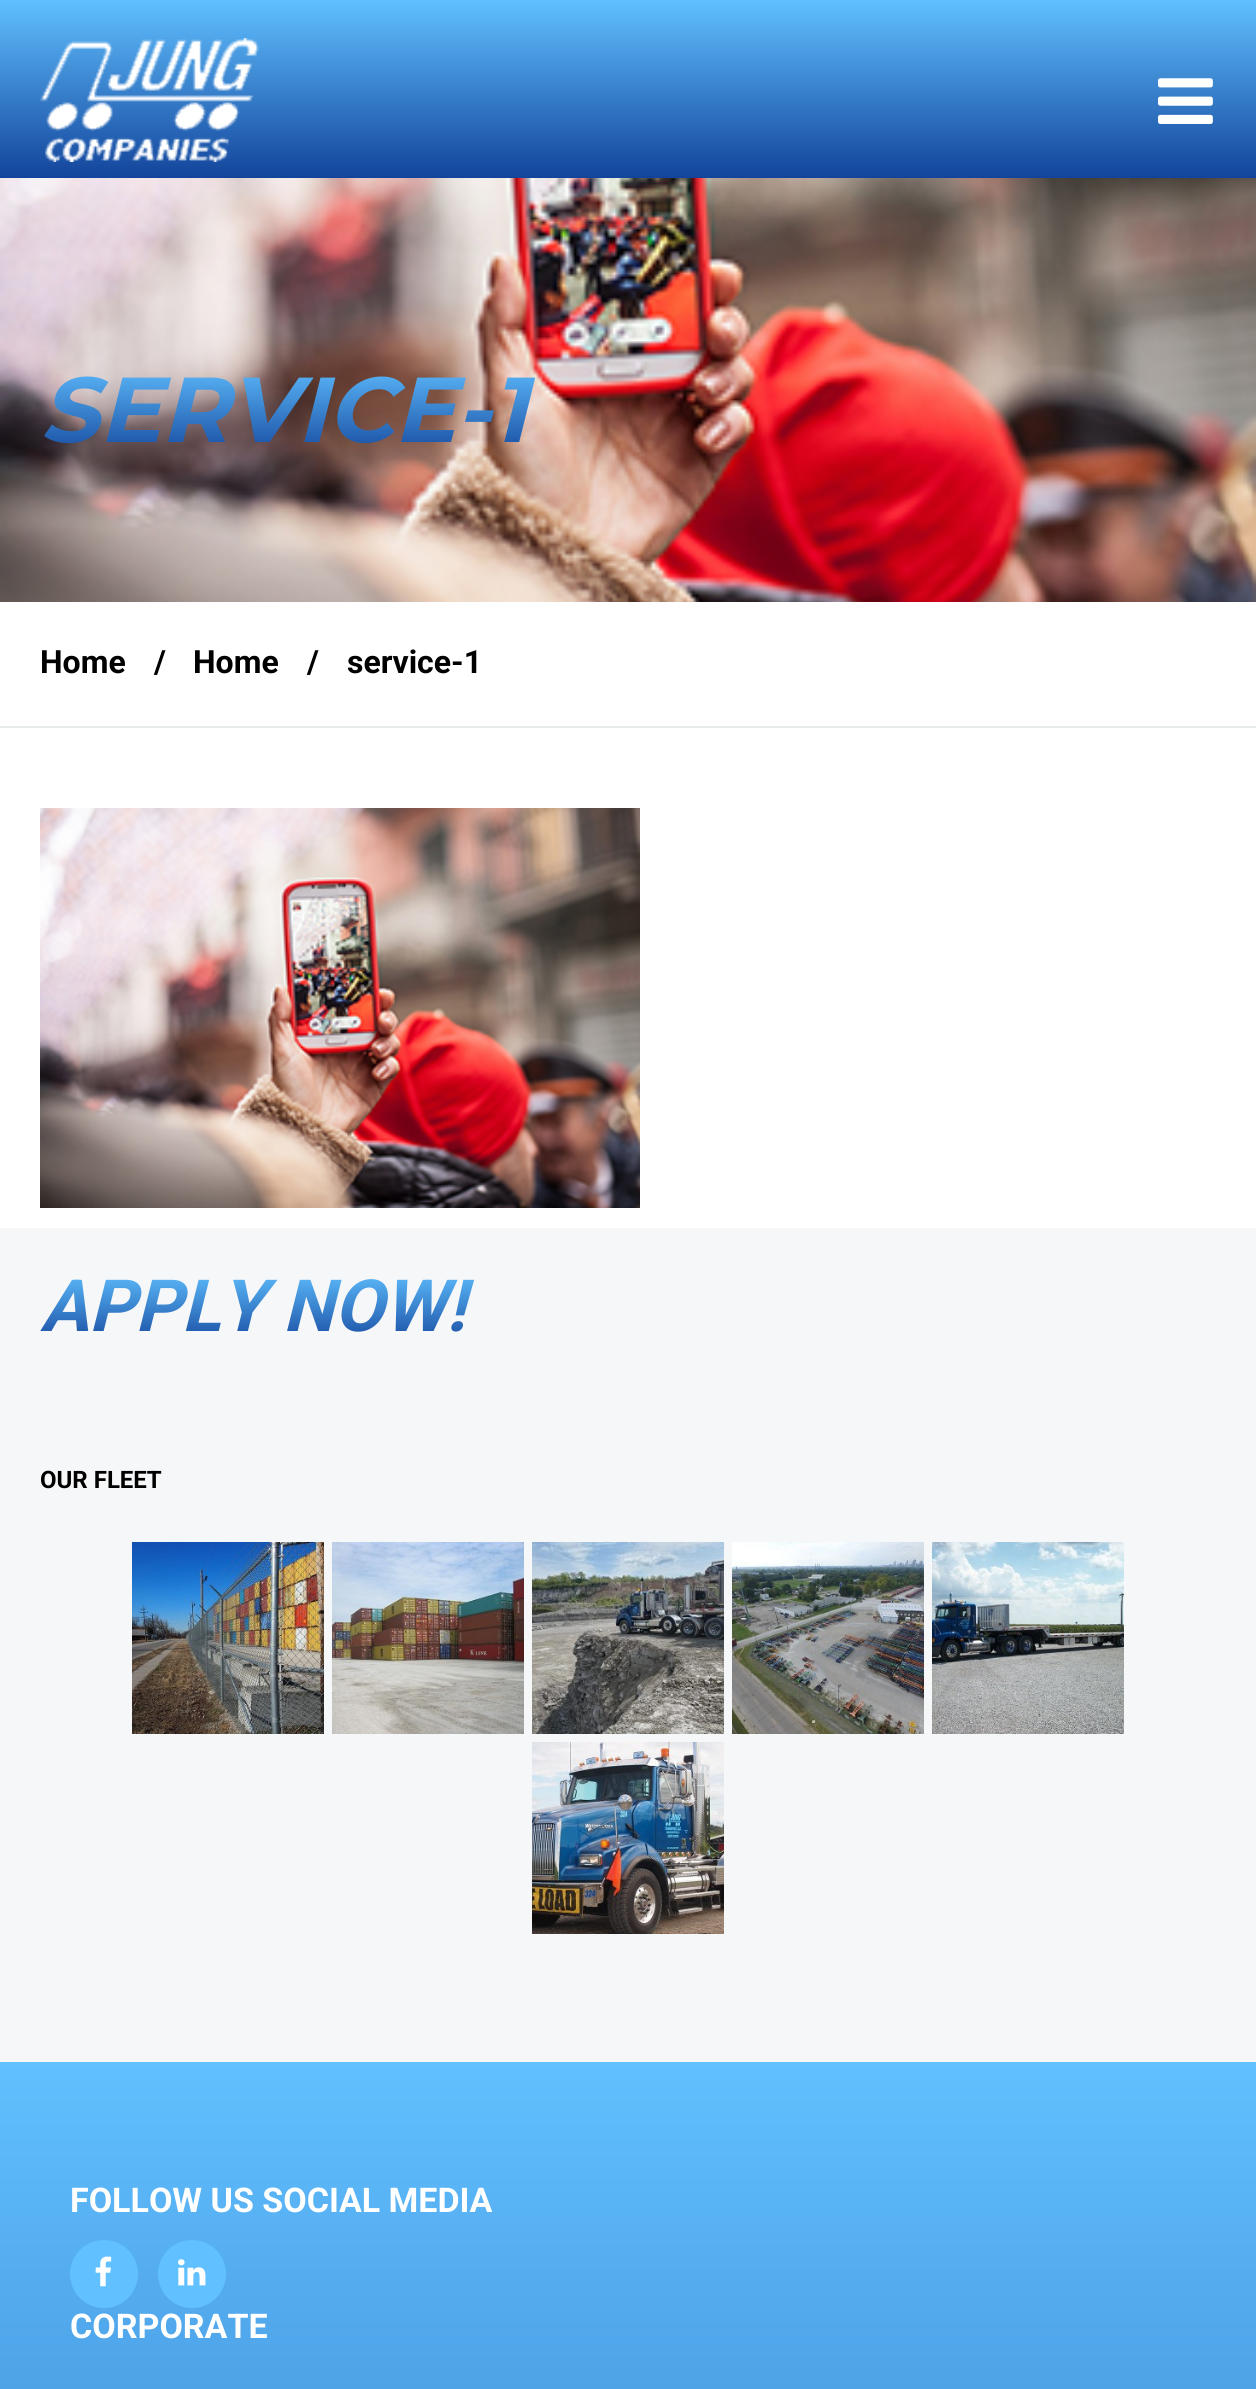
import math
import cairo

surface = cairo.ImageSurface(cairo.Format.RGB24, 1256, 2389)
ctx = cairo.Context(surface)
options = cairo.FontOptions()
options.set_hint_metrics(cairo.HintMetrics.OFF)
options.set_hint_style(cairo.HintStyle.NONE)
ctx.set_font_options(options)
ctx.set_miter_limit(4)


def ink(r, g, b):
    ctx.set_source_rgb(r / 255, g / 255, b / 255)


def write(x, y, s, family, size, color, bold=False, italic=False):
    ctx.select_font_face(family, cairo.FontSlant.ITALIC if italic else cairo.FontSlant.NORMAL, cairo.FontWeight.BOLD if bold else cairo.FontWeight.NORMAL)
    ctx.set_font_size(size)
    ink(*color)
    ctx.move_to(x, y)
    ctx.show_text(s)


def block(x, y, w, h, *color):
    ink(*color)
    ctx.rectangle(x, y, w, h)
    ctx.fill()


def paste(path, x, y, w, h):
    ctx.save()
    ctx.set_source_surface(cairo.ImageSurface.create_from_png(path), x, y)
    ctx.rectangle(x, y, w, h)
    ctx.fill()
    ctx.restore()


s1 = dict(family="Roboto", size=32, color=(0, 0, 0), bold=True)
s2 = dict(family="Roboto", size=24, color=(0, 0, 0), bold=True)
s3 = dict(family="Roboto", size=34, color=(255, 255, 255), bold=True)

ink(255, 255, 255)
ctx.paint()
gradient = cairo.LinearGradient(628, 0, 628, 178)
gradient.add_color_stop_rgba(0, 0.38, 0.753, 1, 1)
gradient.add_color_stop_rgba(1, 0.071, 0.267, 0.608, 1)
ctx.set_source(gradient)
ctx.rectangle(0, 0, 1256, 178)
ctx.fill()
paste("pic1.png", 40, 38, 219, 124)
paste("pic2.png", 1158, 78, 55, 46)
paste("pic3.png", 0, 178, 1256, 424)
ctx.select_font_face("Montserrat", cairo.FontSlant.ITALIC, cairo.FontWeight.BOLD)
ctx.set_font_size(92)
gradient = cairo.LinearGradient(628, 360, 628, 461)
gradient.add_color_stop_rgba(0, 0.38, 0.753, 1, 1)
gradient.add_color_stop_rgba(1, 0.071, 0.267, 0.608, 1)
ctx.set_source(gradient)
ctx.move_to(40, 442)
ctx.show_text("SERVICE-1")
block(0, 726, 1256, 2, 231, 234, 235)
write(40, 673, "Home", **s1)
write(154, 673, "/", **s1)
write(193, 673, "Home", **s1)
write(307, 673, "/", **s1)
write(347, 673, "service-1", **s1)
paste("pic4.png", 40, 808, 600, 400)
block(0, 1228, 1256, 834, 246, 247, 248)
ctx.select_font_face("Roboto", cairo.FontSlant.ITALIC, cairo.FontWeight.BOLD)
ctx.set_font_size(72)
gradient = cairo.LinearGradient(628, 1269, 628, 1348)
gradient.add_color_stop_rgba(0, 0.38, 0.753, 1, 1)
gradient.add_color_stop_rgba(1, 0.071, 0.267, 0.608, 1)
ctx.set_source(gradient)
ctx.move_to(40, 1331)
ctx.show_text("APPLY NOW!")
write(40, 1488, "OUR FLEET", **s2)
paste("pic5.png", 132, 1542, 192, 192)
paste("pic6.png", 332, 1542, 192, 192)
paste("pic7.png", 532, 1542, 192, 192)
paste("pic8.png", 732, 1542, 192, 192)
paste("pic9.png", 932, 1542, 192, 192)
paste("pic10.png", 532, 1742, 192, 192)
gradient = cairo.LinearGradient(628, 2062, 628, 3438)
gradient.add_color_stop_rgba(0, 0.38, 0.753, 1, 1)
gradient.add_color_stop_rgba(1, 0.071, 0.267, 0.608, 1)
ctx.set_source(gradient)
ctx.rectangle(0, 2062, 1256, 327)
ctx.fill()
write(70, 2212, "FOLLOW US SOCIAL MEDIA", **s3)
ink(97, 192, 255)
ctx.new_path()
ctx.arc(104, 2274, 34, 0, 2 * math.pi)
ctx.fill()
paste("pic11.png", 95, 2256, 17, 31)
ctx.arc(192, 2274, 34, 0, 2 * math.pi)
ctx.fill()
paste("pic12.png", 178, 2259, 28, 27)
write(70, 2338, "CORPORATE", **s3)
surface.write_to_png("screenshot.png")
